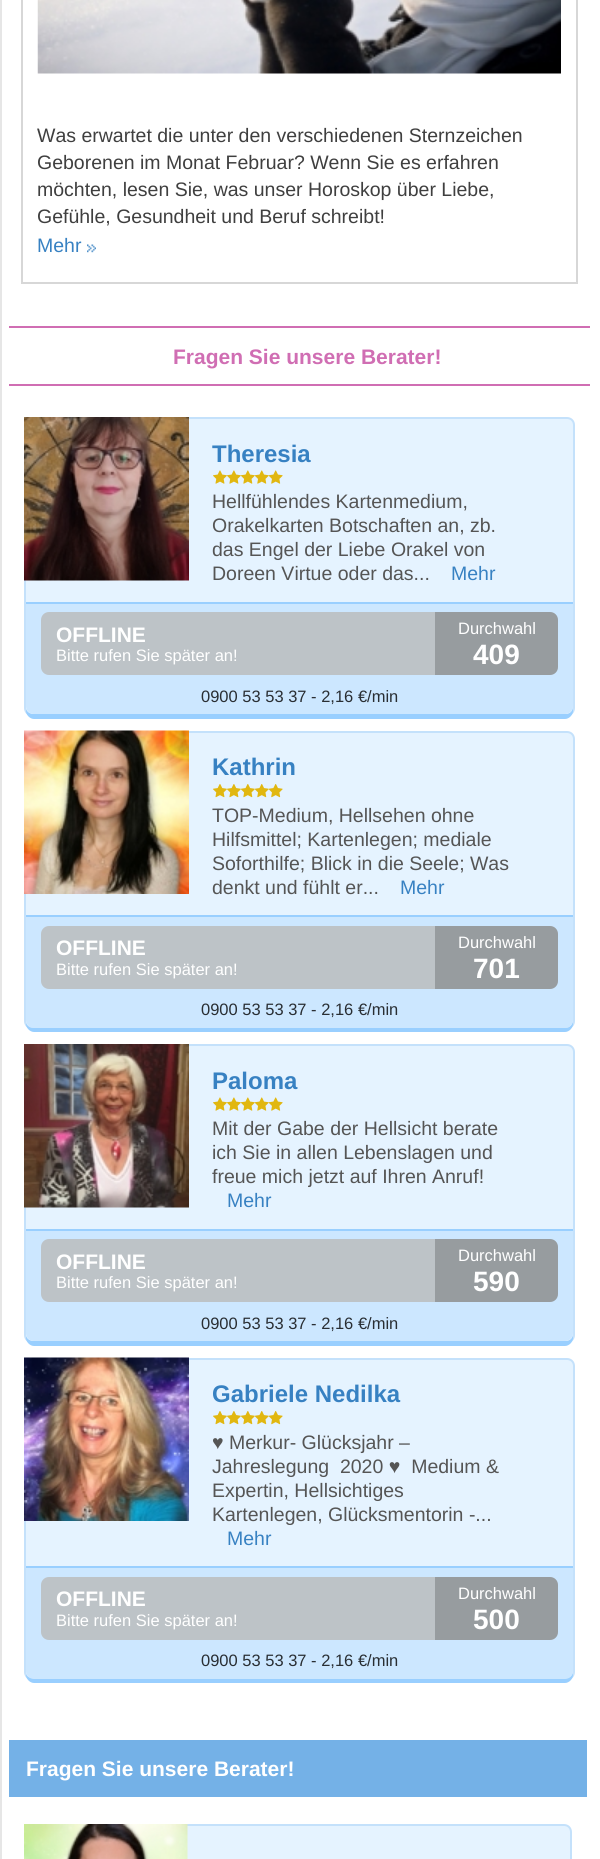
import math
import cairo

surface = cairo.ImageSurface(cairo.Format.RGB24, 600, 1859)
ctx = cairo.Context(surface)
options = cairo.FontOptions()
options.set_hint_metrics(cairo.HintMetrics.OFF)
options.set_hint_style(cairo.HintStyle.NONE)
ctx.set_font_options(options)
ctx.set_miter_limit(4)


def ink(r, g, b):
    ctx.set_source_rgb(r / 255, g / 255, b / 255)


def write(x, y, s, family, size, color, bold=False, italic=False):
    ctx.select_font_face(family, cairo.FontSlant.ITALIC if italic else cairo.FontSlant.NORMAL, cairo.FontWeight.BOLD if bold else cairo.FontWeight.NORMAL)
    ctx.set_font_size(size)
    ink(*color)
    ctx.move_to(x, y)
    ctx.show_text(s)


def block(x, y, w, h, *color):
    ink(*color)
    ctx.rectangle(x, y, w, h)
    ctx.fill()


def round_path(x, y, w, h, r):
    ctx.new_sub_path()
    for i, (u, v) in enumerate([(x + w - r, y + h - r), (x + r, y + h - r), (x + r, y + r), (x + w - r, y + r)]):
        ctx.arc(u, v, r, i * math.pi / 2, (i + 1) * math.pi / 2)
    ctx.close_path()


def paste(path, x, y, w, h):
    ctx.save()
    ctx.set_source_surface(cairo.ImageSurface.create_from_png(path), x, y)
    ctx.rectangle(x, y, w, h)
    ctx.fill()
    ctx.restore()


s1 = dict(family="Liberation Sans", size=19.5, color=(63, 63, 63))
s2 = dict(family="Liberation Sans", size=19.5, color=(55, 129, 194))
s3 = dict(family="Liberation Sans", size=21, color=(208, 110, 179), bold=True)
s4 = dict(family="Liberation Sans", size=24, color=(55, 129, 194), bold=True)
s5 = dict(family="Liberation Sans", size=19.5, color=(85, 85, 85))
s6 = dict(family="Liberation Sans", size=21, color=(255, 255, 255), bold=True)
s7 = dict(family="Liberation Sans", size=16.5, color=(255, 255, 255))
s8 = dict(family="Liberation Sans", size=28, color=(255, 255, 255), bold=True)
s9 = dict(family="Liberation Sans", size=16.5, color=(41, 46, 51))

ink(255, 255, 255)
ctx.paint()
block(0, 0, 2, 1859, 230, 230, 230)
ctx.rectangle(22, -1, 555, 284)
ink(215, 215, 215)
ctx.stroke()
paste("pic1.png", 37, 0, 524, 74)
write(37, 142, "Was erwartet die unter den verschiedenen Sternzeichen", **s1)
write(37, 169, "Geborenen im Monat Februar? Wenn Sie es erfahren", **s1)
write(37, 196, "möchten, lesen Sie, was unser Horoskop über Liebe,", **s1)
write(37, 223, "Gefühle, Gesundheit und Beruf schreibt!", **s1)
write(37, 252, "Mehr", **s2)
paste("pic2.png", 87, 244, 9, 9)
block(9, 326, 581, 2, 208, 110, 179)
block(9, 384, 581, 2, 208, 110, 179)
write(173, 364, "Fragen Sie unsere Berater!", **s3)
ink(229, 243, 255)
ctx.new_path()
ctx.move_to(25, 418)
ctx.line_to(567, 418)
ctx.curve_to(571, 418, 574, 421, 574, 425)
ctx.line_to(574, 708)
ctx.curve_to(574, 712, 571, 715, 567, 715)
ctx.line_to(32, 715)
ctx.curve_to(28, 715, 25, 712, 25, 708)
ctx.close_path()
ctx.fill_preserve()
ink(196, 225, 251)
ctx.stroke()
paste("pic3.png", 24, 417, 165, 164)
write(212, 462, "Theresia", **s4)
paste("pic4.png", 213, 470, 70, 14)
write(212, 508, "Hellfühlendes Kartenmedium,", **s5)
write(212, 532, "Orakelkarten Botschaften an, zb.", **s5)
write(212, 556, "das Engel der Liebe Orakel von", **s5)
write(212, 580, "Doreen Virtue oder das...", **s5)
write(451, 580, "Mehr", **s2)
ink(153, 207, 255)
ctx.new_path()
ctx.move_to(26, 709)
ctx.line_to(26, 711)
ctx.curve_to(26, 715, 30, 719, 34, 719)
ctx.line_to(565, 719)
ctx.curve_to(569, 719, 573, 715, 573, 711)
ctx.line_to(573, 706)
ctx.curve_to(573, 711, 570, 714, 566, 714)
ctx.line_to(33, 714)
ctx.curve_to(30, 714, 27, 712, 26, 709)
ctx.close_path()
ctx.fill()
ink(204, 231, 255)
ctx.new_path()
ctx.move_to(26, 602)
ctx.line_to(573, 602)
ctx.line_to(573, 706)
ctx.curve_to(573, 710.5, 569.5, 714, 565, 714)
ctx.line_to(34, 714)
ctx.curve_to(29.5, 714, 26, 710.5, 26, 706)
ctx.close_path()
ctx.fill()
block(26, 602, 547, 2, 153, 207, 255)
ink(189, 195, 199)
round_path(41, 612, 517, 63, 8)
ctx.fill()
write(56, 642, "OFFLINE", **s6)
write(56, 661, "Bitte rufen Sie später an!", **s7)
ctx.set_source_rgba(0, 0, 0, 0.2)
ctx.new_path()
ctx.move_to(435, 612)
ctx.line_to(550, 612)
ctx.curve_to(554.5, 612, 558, 615.5, 558, 620)
ctx.line_to(558, 667)
ctx.curve_to(558, 671.5, 554.5, 675, 550, 675)
ctx.line_to(435, 675)
ctx.close_path()
ctx.fill()
write(458, 634, "Durchwahl", **s7)
write(473, 664, "409", **s8)
write(201, 702, "0900 53 53 37 - 2,16 €/min", **s9)
ink(229, 243, 255)
ctx.new_path()
ctx.move_to(25, 732)
ctx.line_to(567, 732)
ctx.curve_to(571, 732, 574, 735, 574, 739)
ctx.line_to(574, 1021)
ctx.curve_to(574, 1025, 571, 1028, 567, 1028)
ctx.line_to(32, 1028)
ctx.curve_to(28, 1028, 25, 1025, 25, 1021)
ctx.close_path()
ctx.fill_preserve()
ink(196, 225, 251)
ctx.stroke()
paste("pic5.png", 24, 730, 165, 164)
write(212, 775, "Kathrin", **s4)
paste("pic6.png", 213, 784, 70, 14)
write(212, 822, "TOP-Medium, Hellsehen ohne", **s5)
write(212, 846, "Hilfsmittel; Kartenlegen; mediale", **s5)
write(212, 870, "Soforthilfe; Blick in die Seele; Was", **s5)
write(212, 894, "denkt und fühlt er...", **s5)
write(400, 894, "Mehr", **s2)
ink(153, 207, 255)
ctx.new_path()
ctx.move_to(26, 1023)
ctx.line_to(26, 1024)
ctx.curve_to(26, 1028, 30, 1032, 34, 1032)
ctx.line_to(565, 1032)
ctx.curve_to(569, 1032, 573, 1028, 573, 1024)
ctx.line_to(573, 1020)
ctx.curve_to(573, 1024, 570, 1028, 566, 1028)
ctx.line_to(33, 1028)
ctx.curve_to(30, 1028, 27, 1026, 26, 1023)
ctx.close_path()
ctx.fill()
ink(204, 231, 255)
ctx.new_path()
ctx.move_to(26, 915)
ctx.line_to(573, 915)
ctx.line_to(573, 1020)
ctx.curve_to(573, 1024.5, 569.5, 1028, 565, 1028)
ctx.line_to(34, 1028)
ctx.curve_to(29.5, 1028, 26, 1024.5, 26, 1020)
ctx.close_path()
ctx.fill()
block(26, 915, 547, 2, 153, 207, 255)
ink(189, 195, 199)
round_path(41, 926, 517, 63, 8)
ctx.fill()
write(56, 955, "OFFLINE", **s6)
write(56, 975, "Bitte rufen Sie später an!", **s7)
ctx.set_source_rgba(0, 0, 0, 0.2)
ctx.new_path()
ctx.move_to(435, 926)
ctx.line_to(550, 926)
ctx.curve_to(554.5, 926, 558, 929.5, 558, 934)
ctx.line_to(558, 981)
ctx.curve_to(558, 985.5, 554.5, 989, 550, 989)
ctx.line_to(435, 989)
ctx.close_path()
ctx.fill()
write(458, 948, "Durchwahl", **s7)
write(473, 978, "701", **s8)
write(201, 1015, "0900 53 53 37 - 2,16 €/min", **s9)
ink(229, 243, 255)
ctx.new_path()
ctx.move_to(25, 1045)
ctx.line_to(567, 1045)
ctx.curve_to(571, 1045, 574, 1048, 574, 1052)
ctx.line_to(574, 1335)
ctx.curve_to(574, 1339, 571, 1342, 567, 1342)
ctx.line_to(32, 1342)
ctx.curve_to(28, 1342, 25, 1339, 25, 1335)
ctx.close_path()
ctx.fill_preserve()
ink(196, 225, 251)
ctx.stroke()
paste("pic7.png", 24, 1044, 165, 164)
write(212, 1089, "Paloma", **s4)
paste("pic4.png", 213, 1097, 70, 14)
write(212, 1135, "Mit der Gabe der Hellsicht berate", **s5)
write(212, 1159, "ich Sie in allen Lebenslagen und", **s5)
write(212, 1183, "freue mich jetzt auf Ihren Anruf!", **s5)
write(227, 1207, "Mehr", **s2)
ink(153, 207, 255)
ctx.new_path()
ctx.move_to(26, 1336)
ctx.line_to(26, 1338)
ctx.curve_to(26, 1342, 30, 1346, 34, 1346)
ctx.line_to(565, 1346)
ctx.curve_to(569, 1346, 573, 1342, 573, 1338)
ctx.line_to(573, 1334)
ctx.curve_to(573, 1338, 570, 1341, 566, 1341)
ctx.line_to(33, 1341)
ctx.curve_to(30, 1341, 27, 1339, 26, 1336)
ctx.close_path()
ctx.fill()
ink(204, 231, 255)
ctx.new_path()
ctx.move_to(26, 1229)
ctx.line_to(573, 1229)
ctx.line_to(573, 1333)
ctx.curve_to(573, 1337.5, 569.5, 1341, 565, 1341)
ctx.line_to(34, 1341)
ctx.curve_to(29.5, 1341, 26, 1337.5, 26, 1333)
ctx.close_path()
ctx.fill()
block(26, 1229, 547, 2, 153, 207, 255)
ink(189, 195, 199)
round_path(41, 1239, 517, 63, 8)
ctx.fill()
write(56, 1269, "OFFLINE", **s6)
write(56, 1288, "Bitte rufen Sie später an!", **s7)
ctx.set_source_rgba(0, 0, 0, 0.2)
ctx.new_path()
ctx.move_to(435, 1239)
ctx.line_to(550, 1239)
ctx.curve_to(554.5, 1239, 558, 1242.5, 558, 1247)
ctx.line_to(558, 1294)
ctx.curve_to(558, 1298.5, 554.5, 1302, 550, 1302)
ctx.line_to(435, 1302)
ctx.close_path()
ctx.fill()
write(458, 1261, "Durchwahl", **s7)
write(473, 1291, "590", **s8)
write(201, 1329, "0900 53 53 37 - 2,16 €/min", **s9)
ink(229, 243, 255)
ctx.new_path()
ctx.move_to(25, 1359)
ctx.line_to(567, 1359)
ctx.curve_to(571, 1359, 574, 1362, 574, 1366)
ctx.line_to(574, 1672)
ctx.curve_to(574, 1676, 571, 1679, 567, 1679)
ctx.line_to(32, 1679)
ctx.curve_to(28, 1679, 25, 1676, 25, 1672)
ctx.close_path()
ctx.fill_preserve()
ink(196, 225, 251)
ctx.stroke()
paste("pic8.png", 24, 1357, 165, 164)
write(212, 1402, "Gabriele Nedilka", **s4)
paste("pic6.png", 213, 1411, 70, 14)
write(212, 1449, "♥ Merkur- Glücksjahr –", **s5)
write(212, 1473, "Jahreslegung  2020 ♥  Medium &", **s5)
write(212, 1497, "Expertin, Hellsichtiges", **s5)
write(212, 1521, "Kartenlegen, Glücksmentorin -...", **s5)
write(227, 1545, "Mehr", **s2)
ink(153, 207, 255)
ctx.new_path()
ctx.move_to(26, 1674)
ctx.line_to(26, 1675)
ctx.curve_to(26, 1679, 30, 1683, 34, 1683)
ctx.line_to(565, 1683)
ctx.curve_to(569, 1683, 573, 1679, 573, 1675)
ctx.line_to(573, 1671)
ctx.curve_to(573, 1675, 570, 1678, 566, 1678)
ctx.line_to(33, 1678)
ctx.curve_to(30, 1678, 27, 1677, 26, 1674)
ctx.close_path()
ctx.fill()
ink(204, 231, 255)
ctx.new_path()
ctx.move_to(26, 1566)
ctx.line_to(573, 1566)
ctx.line_to(573, 1671)
ctx.curve_to(573, 1675.5, 569.5, 1679, 565, 1679)
ctx.line_to(34, 1679)
ctx.curve_to(29.5, 1679, 26, 1675.5, 26, 1671)
ctx.close_path()
ctx.fill()
block(26, 1566, 547, 2, 153, 207, 255)
ink(189, 195, 199)
round_path(41, 1577, 517, 63, 8)
ctx.fill()
write(56, 1606, "OFFLINE", **s6)
write(56, 1626, "Bitte rufen Sie später an!", **s7)
ctx.set_source_rgba(0, 0, 0, 0.2)
ctx.new_path()
ctx.move_to(435, 1577)
ctx.line_to(550, 1577)
ctx.curve_to(554.5, 1577, 558, 1580.5, 558, 1585)
ctx.line_to(558, 1632)
ctx.curve_to(558, 1636.5, 554.5, 1640, 550, 1640)
ctx.line_to(435, 1640)
ctx.close_path()
ctx.fill()
write(458, 1599, "Durchwahl", **s7)
write(473, 1629, "500", **s8)
write(201, 1666, "0900 53 53 37 - 2,16 €/min", **s9)
block(9, 1740, 578, 57, 116, 177, 231)
write(26, 1776, "Fragen Sie unsere Berater!", **s6)
ink(229, 243, 255)
ctx.new_path()
ctx.move_to(25, 1825)
ctx.line_to(564, 1825)
ctx.curve_to(568, 1825, 571, 1828, 571, 1832)
ctx.line_to(571, 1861)
ctx.curve_to(571, 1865, 568, 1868, 564, 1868)
ctx.line_to(32, 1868)
ctx.curve_to(28, 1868, 25, 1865, 25, 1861)
ctx.close_path()
ctx.fill_preserve()
ink(196, 225, 251)
ctx.stroke()
paste("pic9.png", 24, 1824, 164, 35)
surface.write_to_png("screenshot.png")
